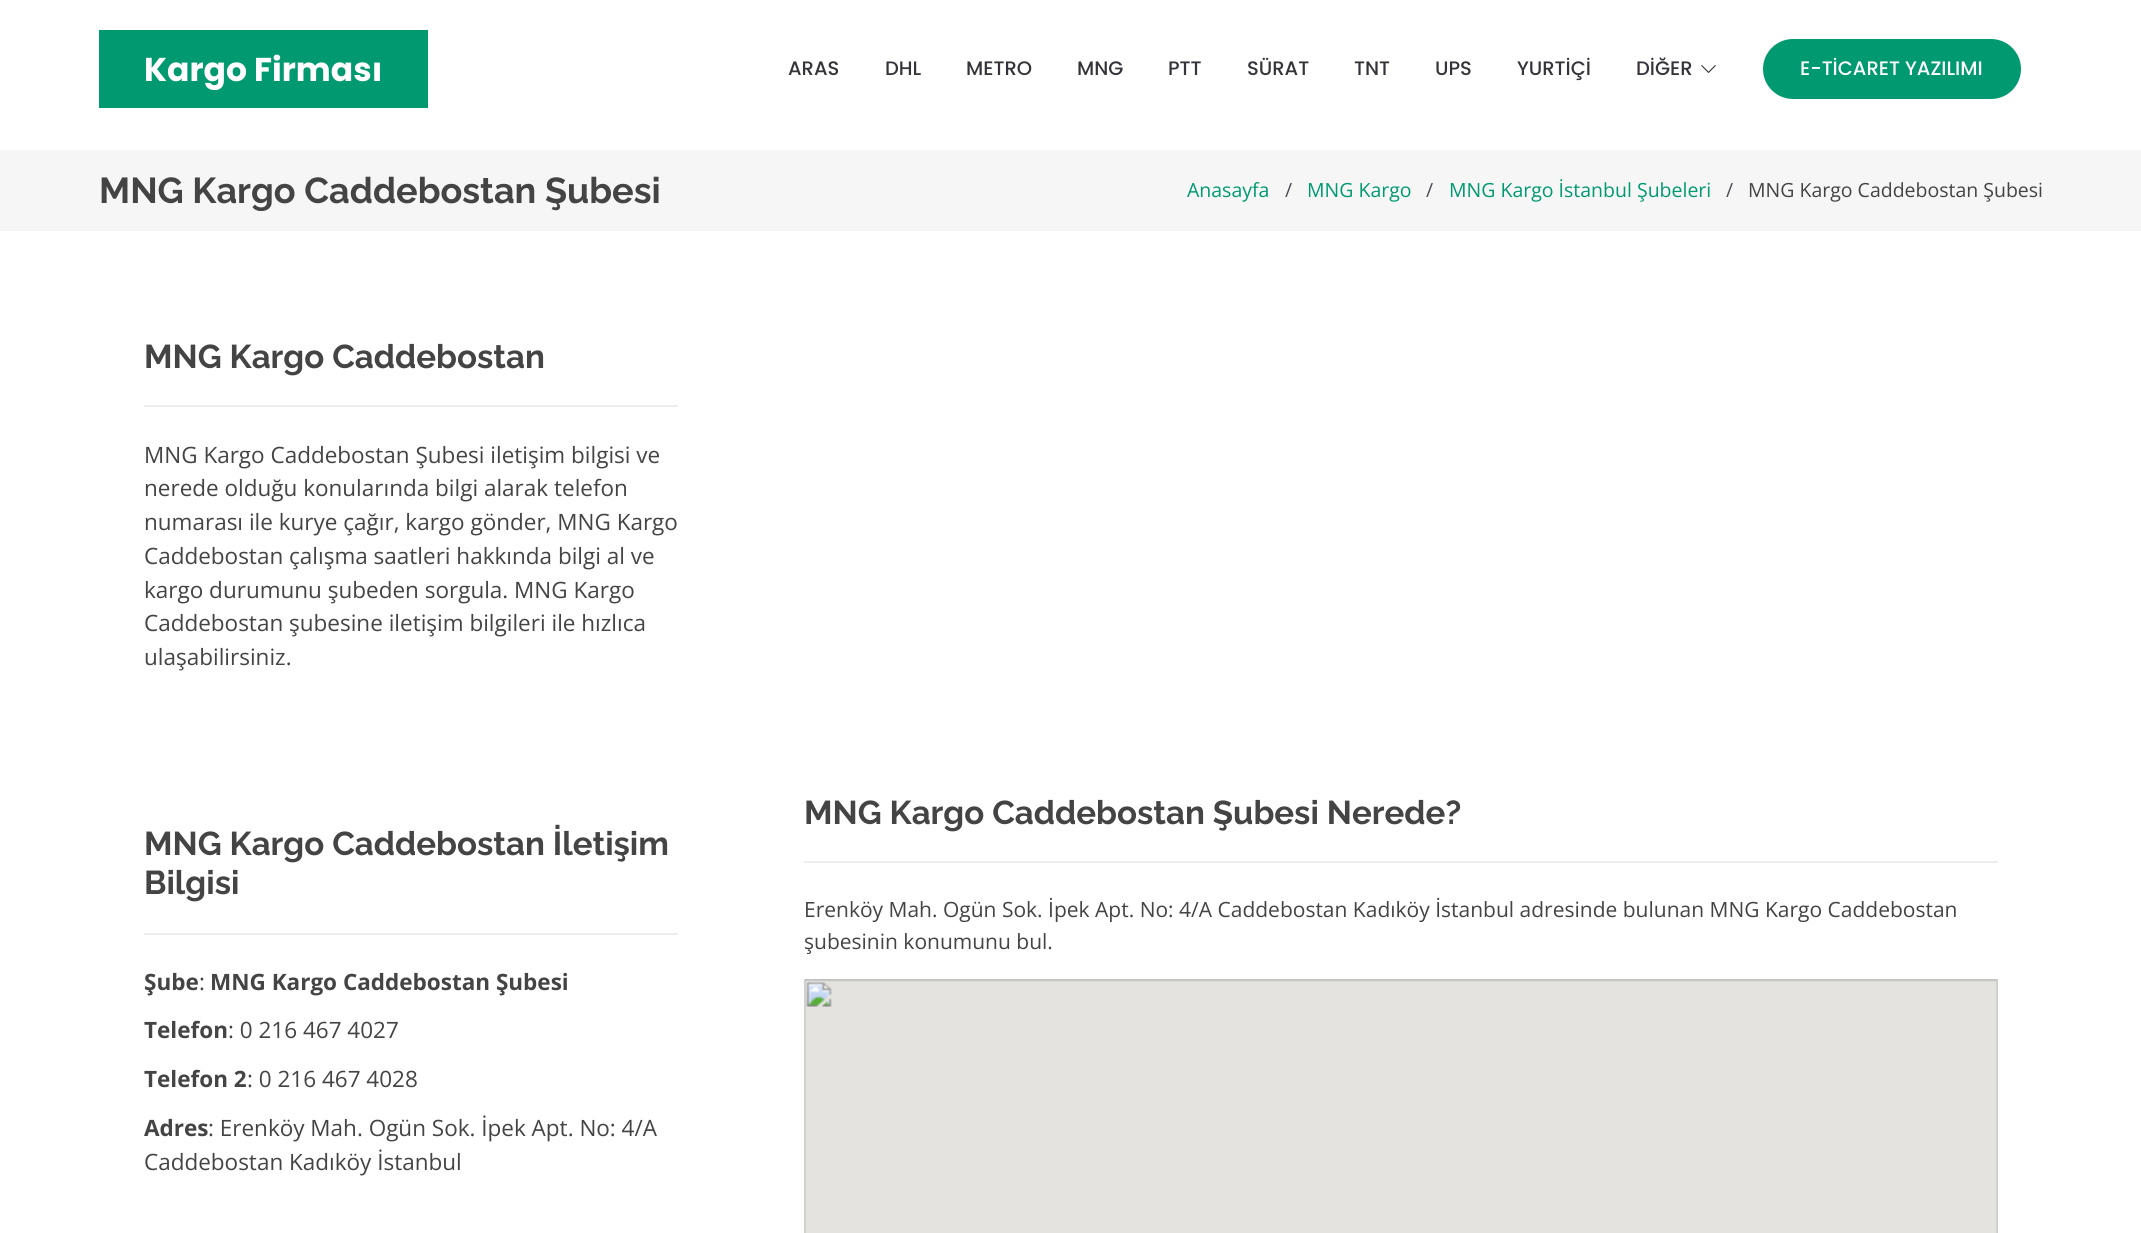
import math
import cairo

surface = cairo.ImageSurface(cairo.Format.RGB24, 2141, 1233)
ctx = cairo.Context(surface)
options = cairo.FontOptions()
options.set_hint_metrics(cairo.HintMetrics.OFF)
options.set_hint_style(cairo.HintStyle.NONE)
ctx.set_font_options(options)
ctx.set_miter_limit(4)


def ink(r, g, b):
    ctx.set_source_rgb(r / 255, g / 255, b / 255)


def write(x, y, s, family, size, color, bold=False, italic=False):
    ctx.select_font_face(family, cairo.FontSlant.ITALIC if italic else cairo.FontSlant.NORMAL, cairo.FontWeight.BOLD if bold else cairo.FontWeight.NORMAL)
    ctx.set_font_size(size)
    ink(*color)
    ctx.move_to(x, y)
    ctx.show_text(s)


def block(x, y, w, h, *color):
    ink(*color)
    ctx.rectangle(x, y, w, h)
    ctx.fill()


def round_path(x, y, w, h, r):
    ctx.new_sub_path()
    for i, (u, v) in enumerate([(x + w - r, y + h - r), (x + r, y + h - r), (x + r, y + r), (x + w - r, y + r)]):
        ctx.arc(u, v, r, i * math.pi / 2, (i + 1) * math.pi / 2)
    ctx.close_path()


def paste(path, x, y, w, h):
    ctx.save()
    ctx.set_source_surface(cairo.ImageSurface.create_from_png(path), x, y)
    ctx.rectangle(x, y, w, h)
    ctx.fill()
    ctx.restore()


s1 = dict(family="Poppins", size=33, color=(255, 255, 255), bold=True)
s2 = dict(family="Poppins Medium", size=19.5, color=(54, 52, 58))
s3 = dict(family="Poppins Medium", size=19.5, color=(255, 255, 255))
s4 = dict(family="Raleway", size=36, color=(68, 68, 68), bold=True)
s5 = dict(family="Open Sans", size=19.5, color=(0, 153, 112))
s6 = dict(family="Open Sans", size=19.5, color=(79, 76, 85))
s7 = dict(family="Open Sans", size=19.5, color=(68, 68, 68))
s8 = dict(family="Raleway", size=33, color=(68, 68, 68), bold=True)
s9 = dict(family="Open Sans", size=22.5, color=(68, 68, 68))
s10 = dict(family="Open Sans", size=22.5, color=(68, 68, 68), bold=True)
s11 = dict(family="Open Sans", size=21, color=(68, 68, 68))

ink(255, 255, 255)
ctx.paint()
block(99, 30, 329, 78, 0, 153, 112)
write(144, 81, "Kargo Firması", **s1)
write(788, 75, "ARAS", **s2)
write(885, 75, "DHL", **s2)
write(966, 75, "METRO", **s2)
write(1077, 75, "MNG", **s2)
write(1168, 75, "PTT", **s2)
write(1247, 75, "SÜRAT", **s2)
write(1354, 75, "TNT", **s2)
write(1435, 75, "UPS", **s2)
write(1517, 75, "YURTİÇİ", **s2)
write(1636, 75, "DİĞER", **s2)
paste("pic1.png", 1701, 65, 15, 8)
ink(0, 153, 112)
round_path(1763, 39, 258, 60, 30)
ctx.fill()
write(1800, 75, "E-TİCARET YAZILIMI", **s3)
block(0, 150, 2141, 81, 246, 246, 247)
write(99, 203, "MNG Kargo Caddebostan Şubesi", **s4)
write(1187, 197, "Anasayfa", **s5)
write(1285, 197, "/", **s6)
write(1307, 197, "MNG Kargo", **s5)
write(1426, 197, "/", **s6)
write(1449, 197, "MNG Kargo İstanbul Şubeleri", **s5)
write(1726, 197, "/", **s6)
write(1748, 197, "MNG Kargo Caddebostan Şubesi", **s7)
block(144, 405, 534, 2, 238, 238, 238)
write(144, 368, "MNG Kargo Caddebostan", **s8)
write(144, 463, "MNG Kargo Caddebostan Şubesi iletişim bilgisi ve", **s9)
write(144, 496, "nerede olduğu konularında bilgi alarak telefon", **s9)
write(144, 530, "numarası ile kurye çağır, kargo gönder, MNG Kargo", **s9)
write(144, 564, "Caddebostan çalışma saatleri hakkında bilgi al ve", **s9)
write(144, 598, "kargo durumunu şubeden sorgula. MNG Kargo", **s9)
write(144, 631, "Caddebostan şubesine iletişim bilgileri ile hızlıca", **s9)
write(144, 665, "ulaşabilirsiniz.", **s9)
block(144, 933, 534, 2, 238, 238, 238)
write(144, 855, "MNG Kargo Caddebostan İletişim", **s8)
write(144, 894, "Bilgisi", **s8)
write(144, 990, "Şube", **s10)
write(199, 990, ":", **s9)
write(210, 990, "MNG Kargo Caddebostan Şubesi", **s10)
write(144, 1038, "Telefon", **s10)
write(228, 1038, ": 0 216 467 4027", **s9)
write(144, 1087, "Telefon 2", **s10)
write(247, 1087, ": 0 216 467 4028", **s9)
write(144, 1136, "Adres", **s10)
write(208, 1136, ": Erenköy Mah. Ogün Sok. İpek Apt. No: 4/A", **s9)
write(144, 1170, "Caddebostan Kadıköy İstanbul", **s9)
block(804, 861, 1194, 2, 238, 238, 238)
write(804, 824, "MNG Kargo Caddebostan Şubesi Nerede?", **s8)
write(804, 917, "Erenköy Mah. Ogün Sok. İpek Apt. No: 4/A Caddebostan Kadıköy İstanbul adresinde bulunan MNG Kargo Caddebostan", **s11)
write(804, 949, "şubesinin konumunu bul.", **s11)
paste("pic2.png", 804, 979, 1194, 254)
surface.write_to_png("screenshot.png")
